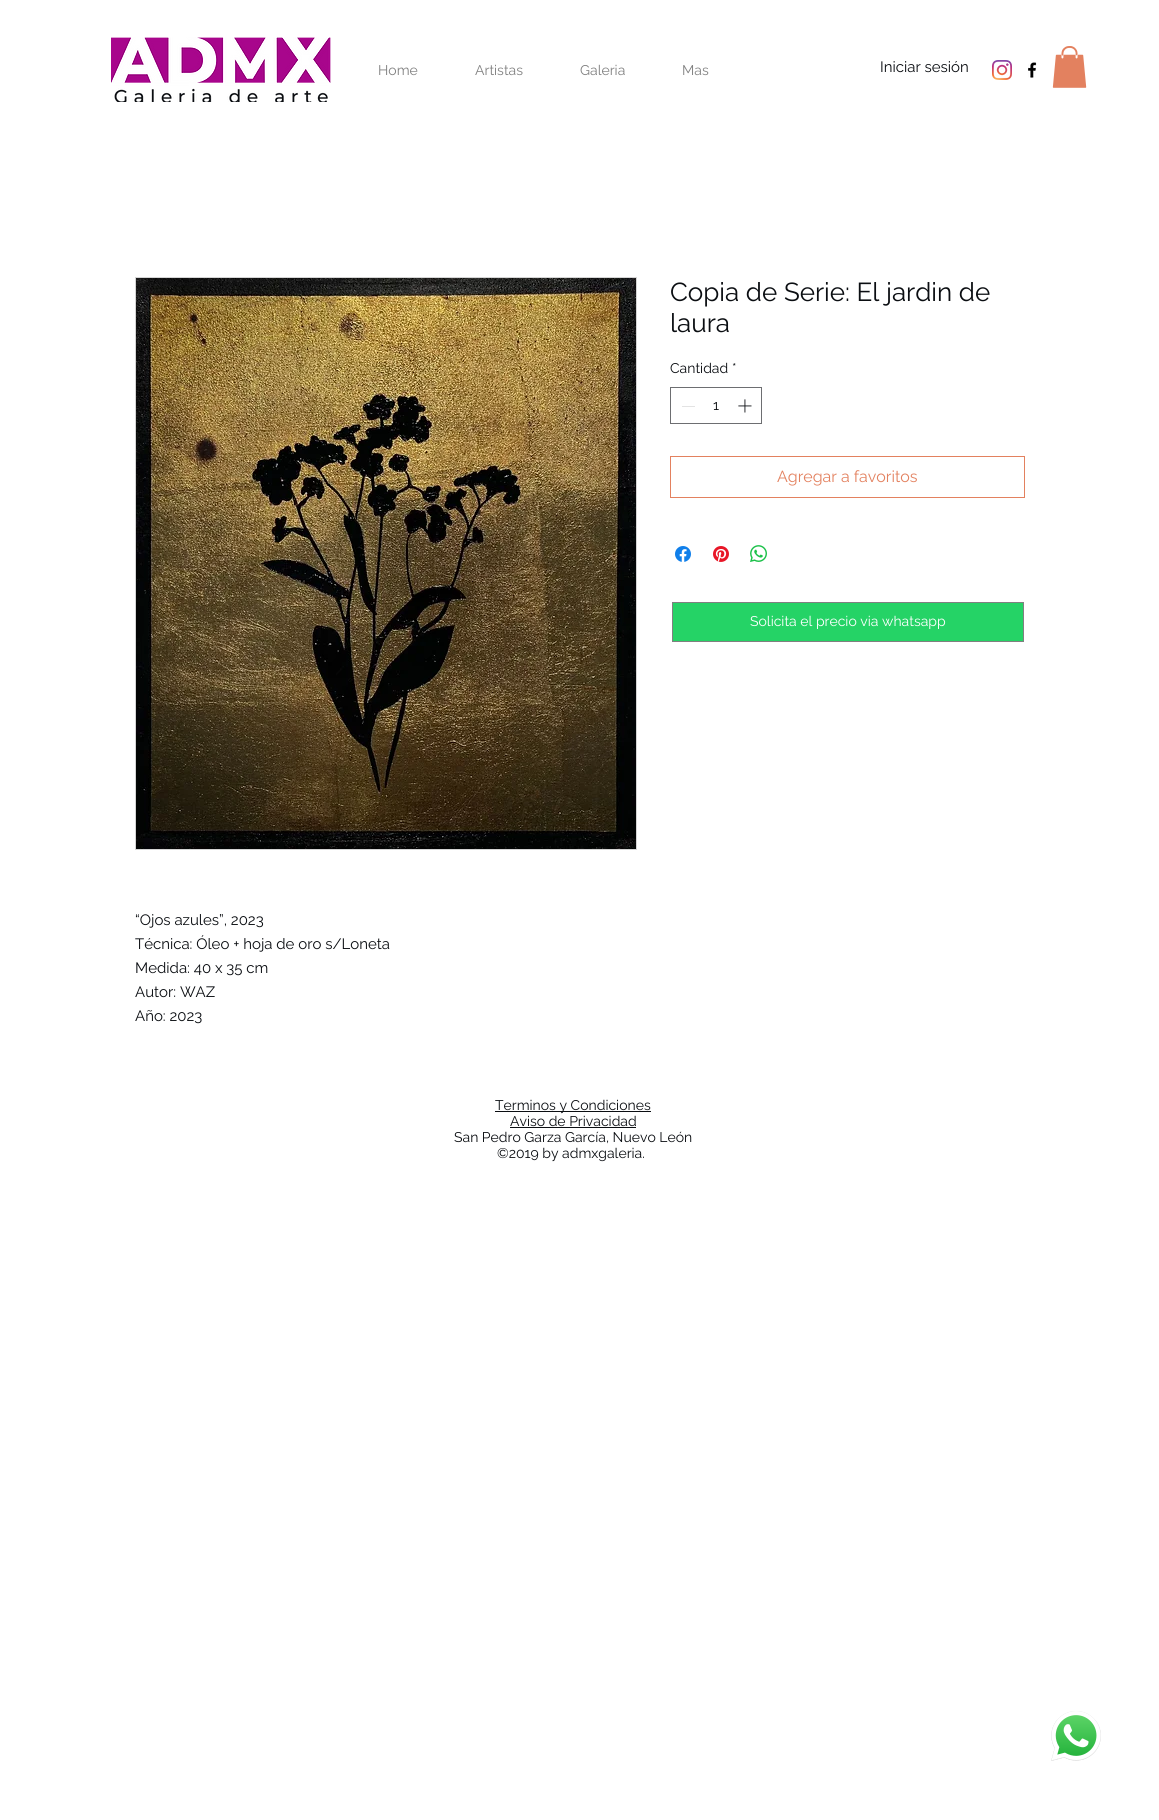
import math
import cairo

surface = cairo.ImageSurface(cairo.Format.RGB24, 1159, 1820)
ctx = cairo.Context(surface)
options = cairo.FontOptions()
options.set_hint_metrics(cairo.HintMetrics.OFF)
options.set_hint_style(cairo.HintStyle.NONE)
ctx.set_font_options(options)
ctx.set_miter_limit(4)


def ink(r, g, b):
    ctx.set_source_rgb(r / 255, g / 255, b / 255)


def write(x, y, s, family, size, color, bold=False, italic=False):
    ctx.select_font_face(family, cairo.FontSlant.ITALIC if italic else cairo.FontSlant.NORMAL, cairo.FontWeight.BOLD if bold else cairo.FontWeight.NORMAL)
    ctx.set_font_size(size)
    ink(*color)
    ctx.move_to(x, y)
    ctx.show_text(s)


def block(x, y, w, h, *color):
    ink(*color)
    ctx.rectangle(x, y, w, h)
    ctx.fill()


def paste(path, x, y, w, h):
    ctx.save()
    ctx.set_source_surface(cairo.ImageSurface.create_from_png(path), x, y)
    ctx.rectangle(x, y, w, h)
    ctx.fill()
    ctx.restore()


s1 = dict(family="Raleway", size=14, color=(128, 128, 128))
s2 = dict(family="Raleway", size=15, color=(11, 14, 18))
s3 = dict(family="Raleway", size=26, color=(11, 14, 18))
s4 = dict(family="Raleway", size=14, color=(11, 14, 18))
s5 = dict(family="Raleway", size=16, color=(227, 129, 95))
s6 = dict(family="Raleway", size=14, color=(255, 255, 255))

ink(255, 255, 255)
ctx.paint()
paste("pic1.png", 111, 37, 220, 65)
write(378, 75, "Home", **s1)
write(475, 75, "Artistas", **s1)
write(580, 75, "Galeria", **s1)
write(682, 75, "Mas", **s1)
write(880, 72, "Iniciar sesión", **s2)
paste("pic2.png", 992, 60, 20, 20)
paste("pic3.png", 1028, 62, 9, 16)
paste("pic4.png", 1052, 46, 35, 42)
write(670, 301, "Copia de Serie: El jardin de", **s3)
write(670, 332, "laura", **s3)
write(670, 373, "Cantidad", **s4)
write(732, 373, "*", **s4)
ctx.rectangle(670.5, 387.5, 91, 36)
ink(109, 110, 113)
ctx.set_line_width(1)
ctx.stroke()
block(682, 406, 13, 1, 227, 227, 227)
write(713, 410, "1", **s4)
paste("pic5.png", 738, 399, 14, 14)
ctx.rectangle(670.5, 456.5, 354, 41)
ink(227, 129, 95)
ctx.stroke()
write(777, 482, "Agregar a favoritos", **s5)
paste("pic6.png", 675, 546, 16, 16)
paste("pic7.png", 713, 546, 16, 16)
paste("pic8.png", 750, 545, 17, 17)
ctx.rectangle(135.5, 277.5, 501, 572)
ink(213, 213, 213)
ctx.stroke()
paste("pic9.png", 136, 278, 500, 571)
write(135, 925, "“Ojos azules”, 2023", **s2)
write(135, 949, "Técnica: Óleo + hoja de oro s/Loneta", **s2)
write(135, 973, "Medida: 40 x 35 cm", **s2)
write(135, 997, "Autor: WAZ", **s2)
write(135, 1021, "Año: 2023", **s2)
ink(37, 211, 102)
ctx.rectangle(672.5, 602.5, 351, 39)
ctx.fill_preserve()
ink(128, 128, 128)
ctx.stroke()
write(750, 626, "Solicita el precio via whatsapp", **s6)
paste("pic10.png", 1051, 1711, 50, 50)
block(495, 1111, 156, 1, 11, 14, 18)
write(495, 1110, "Terminos y Condiciones", **s4)
write(510, 1126, "Aviso de Privacidad", **s4)
block(510, 1127, 126, 1, 11, 14, 18)
write(454, 1142, "San Pedro Garza García, Nuevo León", **s4)
write(497, 1158, "©2019 by admxgaleria.", **s4)
paste("pic11.png", 1051, 1720, 50, 41)
surface.write_to_png("screenshot.png")
